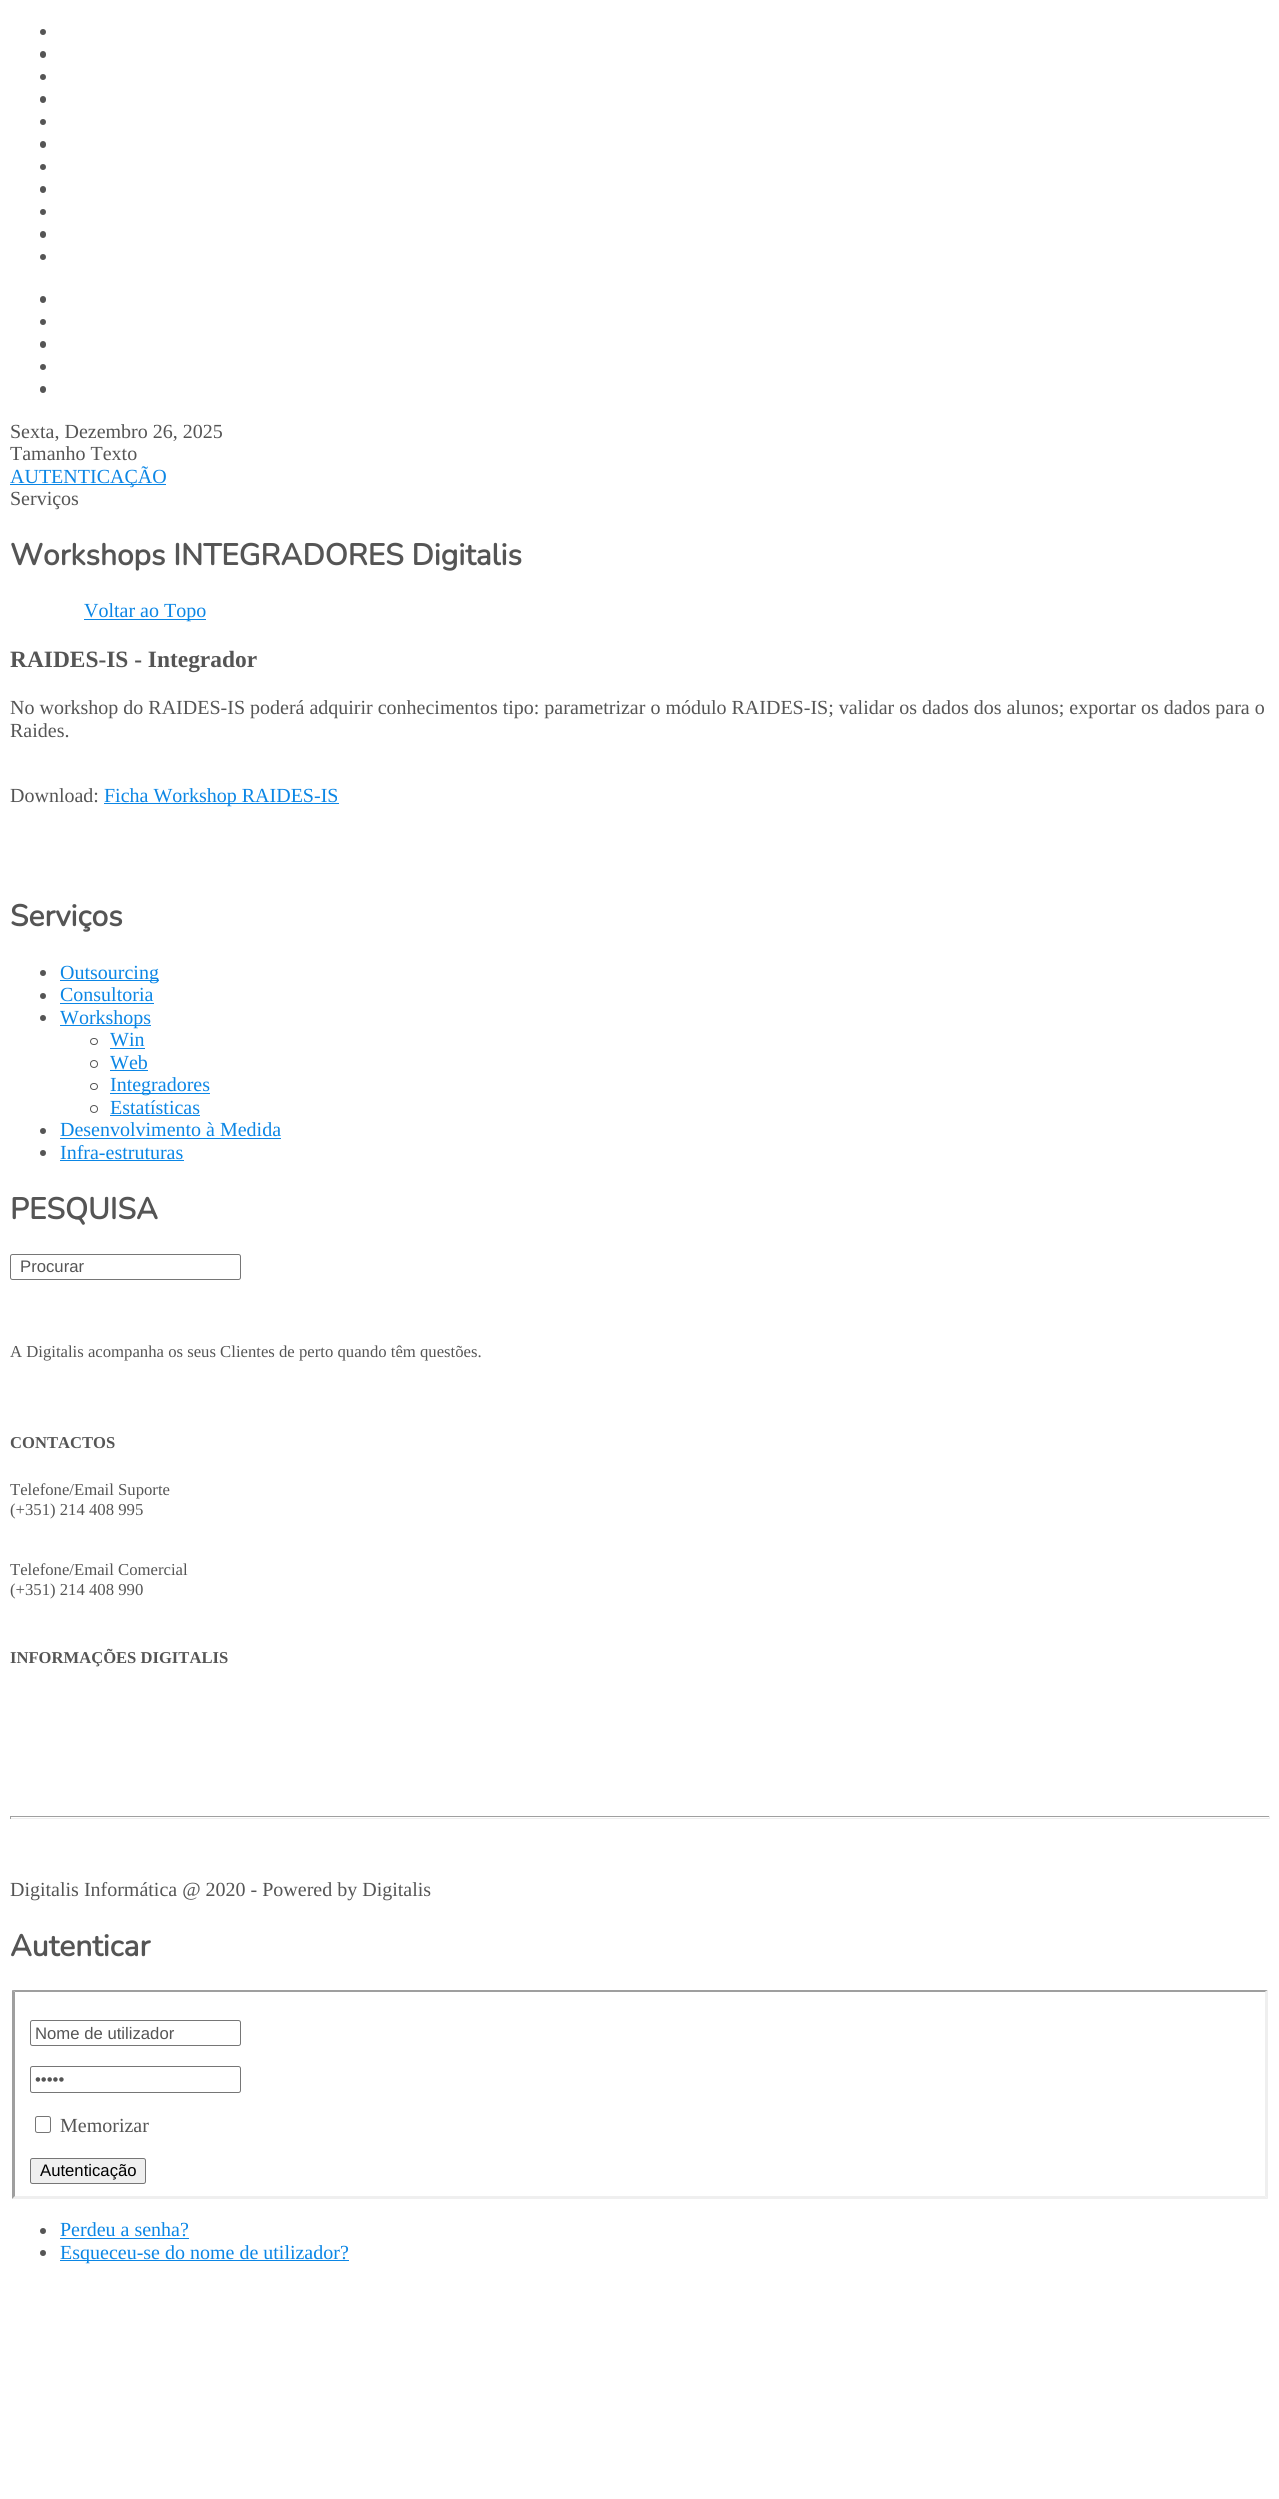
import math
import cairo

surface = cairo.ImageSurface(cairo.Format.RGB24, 1279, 2499)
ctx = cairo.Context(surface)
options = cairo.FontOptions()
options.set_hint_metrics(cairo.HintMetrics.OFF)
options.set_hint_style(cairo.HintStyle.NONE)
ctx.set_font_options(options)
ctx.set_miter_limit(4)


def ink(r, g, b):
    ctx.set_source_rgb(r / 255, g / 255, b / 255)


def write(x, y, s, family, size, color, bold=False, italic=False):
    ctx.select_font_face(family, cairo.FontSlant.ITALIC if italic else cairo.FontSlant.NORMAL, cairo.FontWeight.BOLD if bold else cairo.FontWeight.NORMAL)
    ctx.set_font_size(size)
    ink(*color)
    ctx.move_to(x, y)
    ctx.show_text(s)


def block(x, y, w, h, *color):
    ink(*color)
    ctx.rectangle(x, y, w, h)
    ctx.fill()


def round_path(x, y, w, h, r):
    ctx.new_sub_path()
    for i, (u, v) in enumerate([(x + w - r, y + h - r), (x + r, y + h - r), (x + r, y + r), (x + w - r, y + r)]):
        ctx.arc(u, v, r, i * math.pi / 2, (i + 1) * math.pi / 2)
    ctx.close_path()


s1 = dict(family="Liberation Serif", size=20, color=(85, 85, 85))
s2 = dict(family="Liberation Serif", size=20, color=(11, 134, 229))
s3 = dict(family="Nunito", size=30, color=(85, 85, 85), bold=True)
s4 = dict(family="Liberation Serif", size=23.4, color=(85, 85, 85), bold=True)
s5 = dict(family="Liberation Sans", size=16.7, color=(85, 85, 85))
s6 = dict(family="Liberation Serif", size=16.7, color=(85, 85, 85))
s7 = dict(family="Liberation Serif", size=16.6, color=(85, 85, 85), bold=True)
s8 = dict(family="Liberation Sans", size=16.7, color=(0, 0, 0))

ink(255, 255, 255)
ctx.paint()
ink(85, 85, 85)
ctx.arc(43, 32, 3, 0, 2 * math.pi)
ctx.fill()
round_path(40, 51, 6, 7, 3)
ctx.fill()
ctx.arc(43, 77, 3, 0, 2 * math.pi)
ctx.fill()
round_path(40, 96, 6, 7, 3)
ctx.fill()
ctx.arc(43, 122, 3, 0, 2 * math.pi)
ctx.fill()
round_path(40, 141, 6, 7, 3)
ctx.fill()
ctx.arc(43, 167, 3, 0, 2 * math.pi)
ctx.fill()
round_path(40, 186, 6, 7, 3)
ctx.fill()
ctx.arc(43, 212, 3, 0, 2 * math.pi)
ctx.fill()
round_path(40, 231, 6, 7, 3)
ctx.fill()
ctx.arc(43, 257, 3, 0, 2 * math.pi)
ctx.fill()
round_path(40, 296, 6, 7, 3)
ctx.fill()
ctx.arc(43, 322, 3, 0, 2 * math.pi)
ctx.fill()
round_path(40, 341, 6, 7, 3)
ctx.fill()
ctx.arc(43, 367, 3, 0, 2 * math.pi)
ctx.fill()
round_path(40, 386, 6, 7, 3)
ctx.fill()
write(10, 438, "Sexta, Dezembro 26, 2025", **s1)
write(10, 460, "Tamanho Texto", **s1)
block(10, 484, 156, 1, 11, 134, 229)
write(10, 483, "AUTENTICAÇÃO", **s2)
write(10, 505, "Serviços", **s1)
write(10, 565, "Workshops INTEGRADORES Digitalis", **s3)
block(84, 619, 122, 1, 11, 134, 229)
write(84, 617, "Voltar ao Topo", **s2)
write(10, 667, "RAIDES-IS - Integrador", **s4)
write(10, 714, "No workshop do RAIDES-IS poderá adquirir conhecimentos tipo: parametrizar o módulo RAIDES-IS; validar os dados dos alunos; exportar os dados para o", **s1)
write(10, 737, "Raides.", **s1)
write(10, 802, "Download:", **s1)
block(104, 803, 235, 1, 11, 134, 229)
write(104, 802, "Ficha Workshop RAIDES-IS", **s2)
write(10, 926, "Serviços", **s3)
ctx.new_path()
ctx.arc(43, 973, 3, 0, 2 * math.pi)
ctx.fill()
block(60, 980, 99, 1, 11, 134, 229)
write(60, 979, "Outsourcing", **s2)
ink(85, 85, 85)
ctx.new_path()
ctx.arc(43, 996, 3, 0, 2 * math.pi)
ctx.fill()
write(60, 1001, "Consultoria", **s2)
block(60, 1003, 94, 1, 11, 134, 229)
ink(85, 85, 85)
ctx.new_path()
ctx.arc(43, 1018, 3, 0, 2 * math.pi)
ctx.fill()
block(60, 1025, 91, 1, 11, 134, 229)
write(60, 1024, "Workshops", **s2)
round_path(90.5, 1038.5, 7, 6, 3)
ink(85, 85, 85)
ctx.set_line_width(1)
ctx.stroke()
write(110, 1046, "Win", **s2)
block(110, 1048, 35, 1, 11, 134, 229)
ctx.new_path()
ctx.arc(94, 1064, 3.5, 0, 2 * math.pi)
ink(85, 85, 85)
ctx.stroke()
write(110, 1069, "Web", **s2)
block(110, 1070, 38, 1, 11, 134, 229)
round_path(90.5, 1083.5, 7, 6, 3)
ink(85, 85, 85)
ctx.stroke()
block(110, 1093, 100, 1, 11, 134, 229)
write(110, 1091, "Integradores", **s2)
ctx.new_path()
ctx.arc(94, 1109, 3.5, 0, 2 * math.pi)
ink(85, 85, 85)
ctx.stroke()
write(110, 1114, "Estatísticas", **s2)
block(110, 1115, 90, 1, 11, 134, 229)
ink(85, 85, 85)
ctx.new_path()
ctx.arc(43, 1131, 3, 0, 2 * math.pi)
ctx.fill()
write(60, 1136, "Desenvolvimento à Medida", **s2)
block(60, 1138, 221, 1, 11, 134, 229)
ink(85, 85, 85)
ctx.new_path()
ctx.arc(43, 1153, 3, 0, 2 * math.pi)
ctx.fill()
write(60, 1159, "Infra-estruturas", **s2)
block(60, 1160, 124, 1, 11, 134, 229)
write(10, 1219, "PESQUISA", **s3)
round_path(10.5, 1254.5, 230, 25, 2)
ink(118, 118, 118)
ctx.stroke()
write(20, 1272, "Procurar", **s5)
write(10, 1357, "A Digitalis acompanha os seus Clientes de perto quando têm questões.", **s6)
write(10, 1448, "CONTACTOS", **s7)
write(10, 1495, "Telefone/Email Suporte", **s6)
write(10, 1515, "(+351) 214 408 995", **s6)
write(10, 1575, "Telefone/Email Comercial", **s6)
write(10, 1595, "(+351) 214 408 990", **s6)
write(10, 1663, "INFORMAÇÕES DIGITALIS", **s7)
block(10, 1816, 1260, 1, 159, 159, 159)
block(1269, 1816, 1, 3, 238, 238, 238)
block(10, 1818, 1260, 1, 238, 238, 238)
block(10, 1816, 1, 3, 159, 159, 159)
write(10, 1896, "Digitalis Informática @ 2020 - Powered by Digitalis", **s1)
write(10, 1956, "Autenticar", **s3)
ink(159, 159, 159)
ctx.new_path()
ctx.move_to(12, 1990)
ctx.line_to(1268, 1990)
ctx.line_to(1265, 1992)
ctx.line_to(15, 1992)
ctx.close_path()
ctx.fill()
ink(239, 239, 239)
ctx.new_path()
ctx.move_to(1268, 1990)
ctx.line_to(1268, 2199)
ctx.line_to(1265, 2196)
ctx.line_to(1265, 1992)
ctx.close_path()
ctx.fill()
ctx.new_path()
ctx.move_to(1268, 2199)
ctx.line_to(12, 2199)
ctx.line_to(15, 2196)
ctx.line_to(1265, 2196)
ctx.close_path()
ctx.fill()
ink(159, 159, 159)
ctx.new_path()
ctx.move_to(12, 2199)
ctx.line_to(12, 1990)
ctx.line_to(15, 1992)
ctx.line_to(15, 2196)
ctx.close_path()
ctx.fill()
round_path(30.5, 2020.5, 210, 25, 2)
ink(118, 118, 118)
ctx.stroke()
write(35, 2039, "Nome de utilizador", **s5)
round_path(30.5, 2066.5, 210, 26, 2)
ink(118, 118, 118)
ctx.stroke()
write(35, 2085, "•••••", **s5)
round_path(35.5, 2116.5, 15, 16, 2)
ink(118, 118, 118)
ctx.stroke()
write(60, 2132, "Memorizar", **s1)
ink(239, 239, 239)
round_path(30.5, 2158.5, 115, 25, 2)
ctx.fill_preserve()
ink(118, 118, 118)
ctx.stroke()
write(40, 2176, "Autenticação", **s8)
ink(85, 85, 85)
ctx.new_path()
ctx.arc(43, 2231, 3, 0, 2 * math.pi)
ctx.fill()
write(60, 2236, "Perdeu a senha?", **s2)
block(60, 2238, 129, 1, 11, 134, 229)
ink(85, 85, 85)
ctx.new_path()
ctx.arc(43, 2253, 3, 0, 2 * math.pi)
ctx.fill()
block(60, 2260, 289, 1, 11, 134, 229)
write(60, 2259, "Esqueceu-se do nome de utilizador?", **s2)
surface.write_to_png("screenshot.png")
